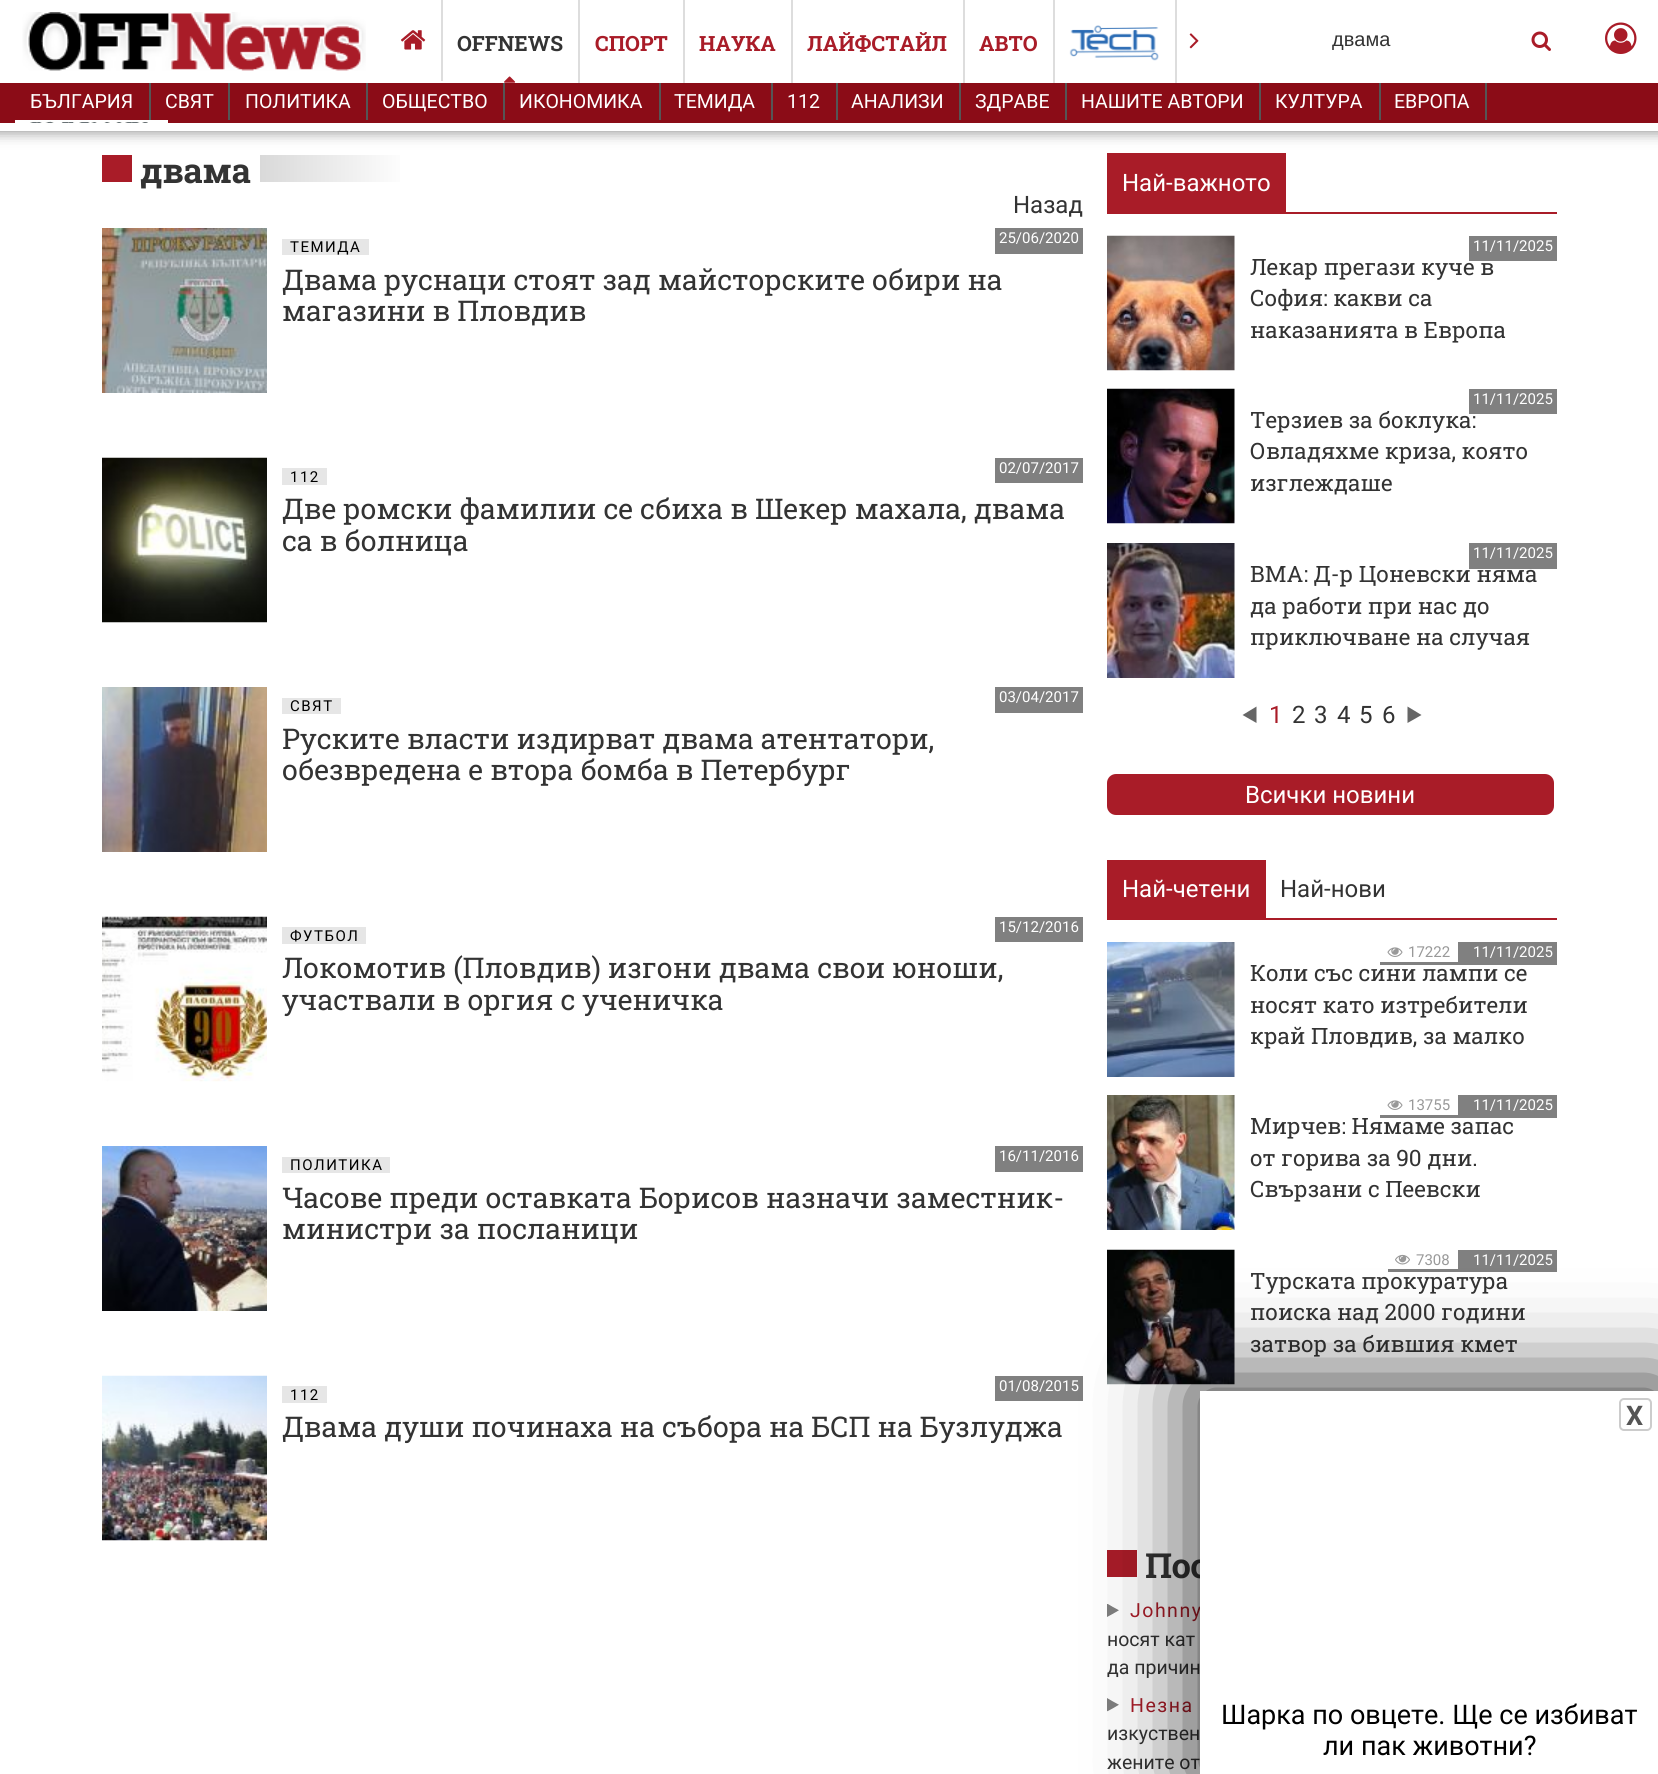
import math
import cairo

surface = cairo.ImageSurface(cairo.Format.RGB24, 1658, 1774)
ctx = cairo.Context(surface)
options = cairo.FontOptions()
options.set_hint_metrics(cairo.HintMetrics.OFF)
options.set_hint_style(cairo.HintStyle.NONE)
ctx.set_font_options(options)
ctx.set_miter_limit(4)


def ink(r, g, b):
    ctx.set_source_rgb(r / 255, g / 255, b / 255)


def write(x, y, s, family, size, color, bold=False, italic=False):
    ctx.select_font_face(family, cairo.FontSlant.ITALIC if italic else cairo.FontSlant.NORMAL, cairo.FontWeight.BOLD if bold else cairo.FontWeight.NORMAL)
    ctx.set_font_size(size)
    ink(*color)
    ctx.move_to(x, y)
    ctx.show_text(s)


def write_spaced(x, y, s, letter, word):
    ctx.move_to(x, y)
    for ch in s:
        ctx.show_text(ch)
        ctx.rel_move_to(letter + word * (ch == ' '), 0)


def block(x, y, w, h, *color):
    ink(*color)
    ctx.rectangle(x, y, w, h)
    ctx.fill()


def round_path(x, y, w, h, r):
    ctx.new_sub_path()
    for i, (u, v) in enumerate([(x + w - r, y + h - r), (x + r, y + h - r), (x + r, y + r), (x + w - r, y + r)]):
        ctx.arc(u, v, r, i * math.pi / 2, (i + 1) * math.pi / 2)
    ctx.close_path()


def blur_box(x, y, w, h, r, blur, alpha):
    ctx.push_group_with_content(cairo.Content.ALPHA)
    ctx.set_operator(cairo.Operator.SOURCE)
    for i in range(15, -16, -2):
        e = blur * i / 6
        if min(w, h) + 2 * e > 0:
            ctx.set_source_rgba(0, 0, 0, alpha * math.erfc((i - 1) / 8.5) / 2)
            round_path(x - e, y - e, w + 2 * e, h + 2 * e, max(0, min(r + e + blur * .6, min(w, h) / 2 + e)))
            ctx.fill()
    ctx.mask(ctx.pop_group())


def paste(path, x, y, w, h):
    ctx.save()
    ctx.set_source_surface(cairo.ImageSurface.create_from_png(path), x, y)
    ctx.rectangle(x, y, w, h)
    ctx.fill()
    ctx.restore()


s1 = dict(family="Roboto Slab", size=21, color=(51, 51, 51), bold=True)
s2 = dict(family="Roboto Slab", size=21, color=(169, 28, 40), bold=True)
s3 = dict(family="Liberation Sans", size=20, color=(51, 51, 51))
s4 = dict(family="Roboto", size=19.5, color=(255, 255, 255))
s5 = dict(family="Roboto", size=24, color=(51, 51, 51))
s6 = dict(family="Roboto", size=15, color=(255, 255, 255))
s7 = dict(family="Roboto Slab", size=28.5, color=(51, 51, 51))
s8 = dict(family="Roboto", size=24, color=(255, 255, 255))
s9 = dict(family="Roboto Slab", size=22.5, color=(51, 51, 51))
s10 = dict(family="Roboto", size=24, color=(169, 28, 40))
s11 = dict(family="Roboto", size=15, color=(153, 153, 153))
s12 = dict(family="Roboto", size=19.5, color=(51, 51, 51))
s13 = dict(family="Roboto", size=27, color=(85, 85, 85), bold=True)
s14 = dict(family="Roboto", size=27, color=(0, 0, 0))

ink(255, 255, 255)
ctx.paint()
paste("pic1.png", 22, 12, 344, 59)
block(1107, 153, 179, 59, 169, 28, 40)
ink(0, 0, 0)
blur_box(-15, 101, 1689, 30, 0, 7.5, 0.5)
block(441, 0, 2, 81, 221, 221, 221)
paste("pic2.png", 401, 30, 25, 20)
block(578, 0, 2, 83, 221, 221, 221)
write(457, 51, "OFFNEWS", **s1)
paste("pic3.png", 504, 76, 12, 7)
block(683, 0, 2, 83, 221, 221, 221)
write(595, 51, "СПОРТ", **s2)
block(791, 0, 2, 83, 221, 221, 221)
write(699, 51, "НАУКА", **s2)
block(963, 0, 2, 83, 221, 221, 221)
write(807, 51, "ЛАЙФСТАЙЛ", **s2)
block(1053, 0, 2, 83, 221, 221, 221)
write(979, 51, "АВТО", **s2)
block(1175, 0, 2, 83, 221, 221, 221)
paste("pic4.png", 1069, 25, 90, 36)
paste("pic5.png", 1189, 33, 10, 16)
write(1332, 46, "двама", **s3)
paste("pic6.png", 1531, 31, 20, 20)
paste("pic7.png", 1605, 22, 32, 32)
block(0, 123, 1658, 8, 255, 255, 255)
block(0, 83, 1658, 40, 139, 12, 23)
block(149, 83, 2, 37, 85, 85, 85)
write(30, 108, "БЪЛГАРИЯ", **s4)
block(228, 83, 2, 37, 85, 85, 85)
write(165, 108, "СВЯТ", **s4)
block(366, 83, 2, 37, 85, 85, 85)
write(245, 108, "ПОЛИТИКА", **s4)
block(503, 83, 2, 37, 85, 85, 85)
write(382, 108, "ОБЩЕСТВО", **s4)
block(659, 83, 2, 37, 85, 85, 85)
write(519, 108, "ИКОНОМИКА", **s4)
block(771, 83, 2, 37, 85, 85, 85)
write(674, 108, "ТЕМИДА", **s4)
block(836, 83, 2, 37, 85, 85, 85)
write(787, 108, "112", **s4)
block(959, 83, 2, 37, 85, 85, 85)
write(851, 108, "АНАЛИЗИ", **s4)
block(1065, 83, 2, 37, 85, 85, 85)
write(975, 108, "ЗДРАВЕ", **s4)
block(1259, 83, 2, 37, 85, 85, 85)
write(1081, 108, "НАШИТЕ АВТОРИ", **s4)
block(1379, 83, 2, 37, 85, 85, 85)
write(1275, 108, "КУЛТУРА", **s4)
block(1485, 83, 2, 37, 85, 85, 85)
write(1394, 108, "ЕВРОПА", **s4)
paste("pic8.png", 15, 120, 153, 3)
block(102, 155, 30, 27, 169, 28, 40)
ctx.select_font_face("Roboto Slab", cairo.FontSlant.NORMAL, cairo.FontWeight.BOLD)
ctx.set_font_size(34.5)
ink(51, 51, 51)
write_spaced(140, 183, "двама", -0.5, 0)
gradient = cairo.LinearGradient(260, 168, 410, 168)
gradient.add_color_stop_rgba(0, 0.851, 0.851, 0.851, 1)
gradient.add_color_stop_rgba(1, 1, 1, 1, 1)
ctx.set_source(gradient)
ctx.rectangle(260, 155, 140, 27)
ctx.fill()
write(1013, 213, "Назад", **s5)
paste("pic9.png", 102, 228, 165, 165)
block(995, 228, 88, 26, 128, 128, 128)
write(999, 243, "25/06/2020", **s6)
block(282, 239, 87, 16, 230, 230, 230)
ink(0, 0, 0)
write_spaced(290, 252, "ТЕМИДА", 1.5, 0)
write(282, 290, "Двама руснаци стоят зад майсторските обири на", **s7)
write(282, 321, "магазини в Пловдив", **s7)
paste("pic10.png", 102, 457, 165, 166)
block(995, 458, 88, 25, 128, 128, 128)
write(999, 473, "02/07/2017", **s6)
block(282, 468, 45, 17, 230, 230, 230)
ink(0, 0, 0)
write_spaced(290, 482, "112", 1.5, 0)
write(282, 519, "Две ромски фамилии се сбиха в Шекер махала, двама", **s7)
write(282, 551, "са в болница", **s7)
paste("pic11.png", 102, 687, 165, 165)
block(995, 687, 88, 26, 128, 128, 128)
write(999, 702, "03/04/2017", **s6)
block(282, 698, 59, 16, 230, 230, 230)
ink(0, 0, 0)
write_spaced(290, 711, "СВЯТ", 1.5, 0)
write(282, 749, "Руските власти издирват двама атентатори,", **s7)
write(282, 780, "обезвредена е втора бомба в Петербург", **s7)
paste("pic12.png", 102, 916, 165, 166)
block(995, 917, 88, 25, 128, 128, 128)
write(999, 932, "15/12/2016", **s6)
block(282, 927, 84, 17, 230, 230, 230)
ink(0, 0, 0)
write_spaced(290, 941, "ФУТБОЛ", 1.5, 0)
write(282, 978, "Локомотив (Пловдив) изгони двама свои юноши,", **s7)
write(282, 1010, "участвали в оргия с ученичка", **s7)
paste("pic13.png", 102, 1146, 165, 165)
block(995, 1146, 88, 26, 128, 128, 128)
write(999, 1161, "16/11/2016", **s6)
block(282, 1157, 108, 16, 230, 230, 230)
ink(0, 0, 0)
write_spaced(290, 1170, "ПОЛИТИКА", 1.5, 0)
write(282, 1208, "Часове преди оставката Борисов назначи заместник-", **s7)
write(282, 1239, "министри за посланици", **s7)
paste("pic14.png", 102, 1375, 165, 166)
block(995, 1376, 88, 25, 128, 128, 128)
write(999, 1391, "01/08/2015", **s6)
block(282, 1386, 45, 17, 230, 230, 230)
ink(0, 0, 0)
write_spaced(290, 1400, "112", 1.5, 0)
write(282, 1437, "Двама души починаха на събора на БСП на Бузлуджа", **s7)
block(1107, 212, 450, 2, 169, 28, 40)
write(1122, 191, "Най-важното", **s8)
paste("pic15.png", 1107, 235, 128, 136)
write(1250, 275, "Лекар прегази куче в", **s9)
block(1469, 236, 88, 25, 128, 128, 128)
write(1473, 251, "11/11/2025", **s6)
write(1250, 306, "София: какви са", **s9)
write(1250, 338, "наказанията в Европа", **s9)
paste("pic16.png", 1107, 388, 128, 136)
write(1250, 428, "Терзиев за боклука:", **s9)
block(1469, 389, 88, 25, 128, 128, 128)
write(1473, 404, "11/11/2025", **s6)
write(1250, 459, "Овладяхме криза, която", **s9)
write(1250, 491, "изглеждаше", **s9)
paste("pic17.png", 1107, 543, 128, 135)
write(1250, 582, "ВМА: Д-р Цоневски няма", **s9)
block(1469, 543, 88, 26, 128, 128, 128)
write(1473, 558, "11/11/2025", **s6)
write(1250, 614, "да работи при нас до", **s9)
write(1250, 645, "приключване на случая", **s9)
ink(102, 102, 102)
ctx.new_path()
ctx.move_to(1256.5, 715)
ctx.line_to(1256.5, 723)
ctx.line_to(1242.5, 715)
ctx.line_to(1256.5, 706.5)
ctx.close_path()
ctx.fill()
write(1269, 723, "1", **s10)
write(1292, 723, "2", **s5)
write(1314, 723, "3", **s5)
write(1337, 723, "4", **s5)
write(1359, 723, "5", **s5)
write(1382, 723, "6", **s5)
ink(102, 102, 102)
ctx.new_path()
ctx.move_to(1407.5, 715)
ctx.line_to(1407.5, 706.5)
ctx.line_to(1421.5, 715)
ctx.line_to(1407.5, 723)
ctx.close_path()
ctx.fill()
ink(169, 28, 40)
round_path(1107, 774, 447, 41, 9)
ctx.fill()
write(1245, 803, "Всички новини", **s8)
block(1107, 918, 450, 2, 169, 28, 40)
block(1107, 860, 159, 58, 169, 28, 40)
write(1122, 897, "Най-четени", **s8)
write(1280, 897, "Най-нови", **s5)
paste("pic18.png", 1107, 942, 128, 135)
write(1250, 981, "Коли със сини лампи се", **s9)
block(1380, 942, 177, 23, 128, 128, 128)
block(1380, 942, 78, 20, 255, 255, 255)
paste("pic19.png", 1387, 947, 16, 10)
write(1408, 957, "17222", **s11)
write(1473, 957, "11/11/2025", **s6)
write(1250, 1013, "носят като изтребители", **s9)
write(1250, 1044, "край Пловдив, за малко", **s9)
paste("pic20.png", 1107, 1095, 128, 135)
block(1380, 1095, 177, 23, 128, 128, 128)
block(1380, 1095, 78, 20, 255, 255, 255)
paste("pic19.png", 1387, 1100, 16, 10)
write(1408, 1110, "13755", **s11)
write(1473, 1110, "11/11/2025", **s6)
write(1250, 1134, "Мирчев: Нямаме запас", **s9)
write(1250, 1166, "от горива за 90 дни.", **s9)
write(1250, 1197, "Свързани с Пеевски", **s9)
paste("pic21.png", 1107, 1249, 128, 136)
block(1388, 1250, 169, 22, 128, 128, 128)
block(1388, 1250, 70, 19, 255, 255, 255)
paste("pic22.png", 1395, 1254, 15, 11)
write(1416, 1265, "7308", **s11)
write(1473, 1265, "11/11/2025", **s6)
write(1250, 1289, "Турската прокуратура", **s9)
write(1250, 1320, "поиска над 2000 години", **s9)
write(1250, 1352, "затвор за бившия кмет", **s9)
block(1107, 1550, 30, 27, 169, 28, 40)
ctx.select_font_face("Roboto Slab", cairo.FontSlant.NORMAL, cairo.FontWeight.BOLD)
ctx.set_font_size(34.5)
ink(51, 51, 51)
write_spaced(1145, 1578, "Пос", -0.5, 0)
paste("pic23.png", 1107, 1604, 12, 13)
ctx.select_font_face("Roboto")
ctx.set_font_size(19.5)
ink(169, 28, 40)
write_spaced(1130, 1617, "Johnny", 1.5, 0)
write(1107, 1646, "носят кат", **s12)
write(1107, 1674, "да причин", **s12)
paste("pic24.png", 1107, 1698, 12, 14)
ink(169, 28, 40)
write_spaced(1130, 1712, "Незна", 1.5, 0)
write(1107, 1740, "изкуствен", **s12)
write(1107, 1769, "жените от", **s12)
ink(0, 0, 0)
blur_box(1190, 1380, 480, 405, 0, 45, 0.75)
ctx.rectangle(1202.5, 1393.5, 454, 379)
ink(255, 255, 255)
ctx.set_line_width(5)
ctx.stroke()
block(1205, 1396, 449, 374, 255, 255, 255)
round_path(1620, 1399, 31, 31, 4)
ink(204, 204, 204)
ctx.set_line_width(2)
ctx.stroke()
write(1626, 1425, "X", **s13)
write(1221, 1724, "Шарка по овцете. Ще се избиват", **s14)
write(1323, 1755, "ли пак животни?", **s14)
surface.write_to_png("screenshot.png")
